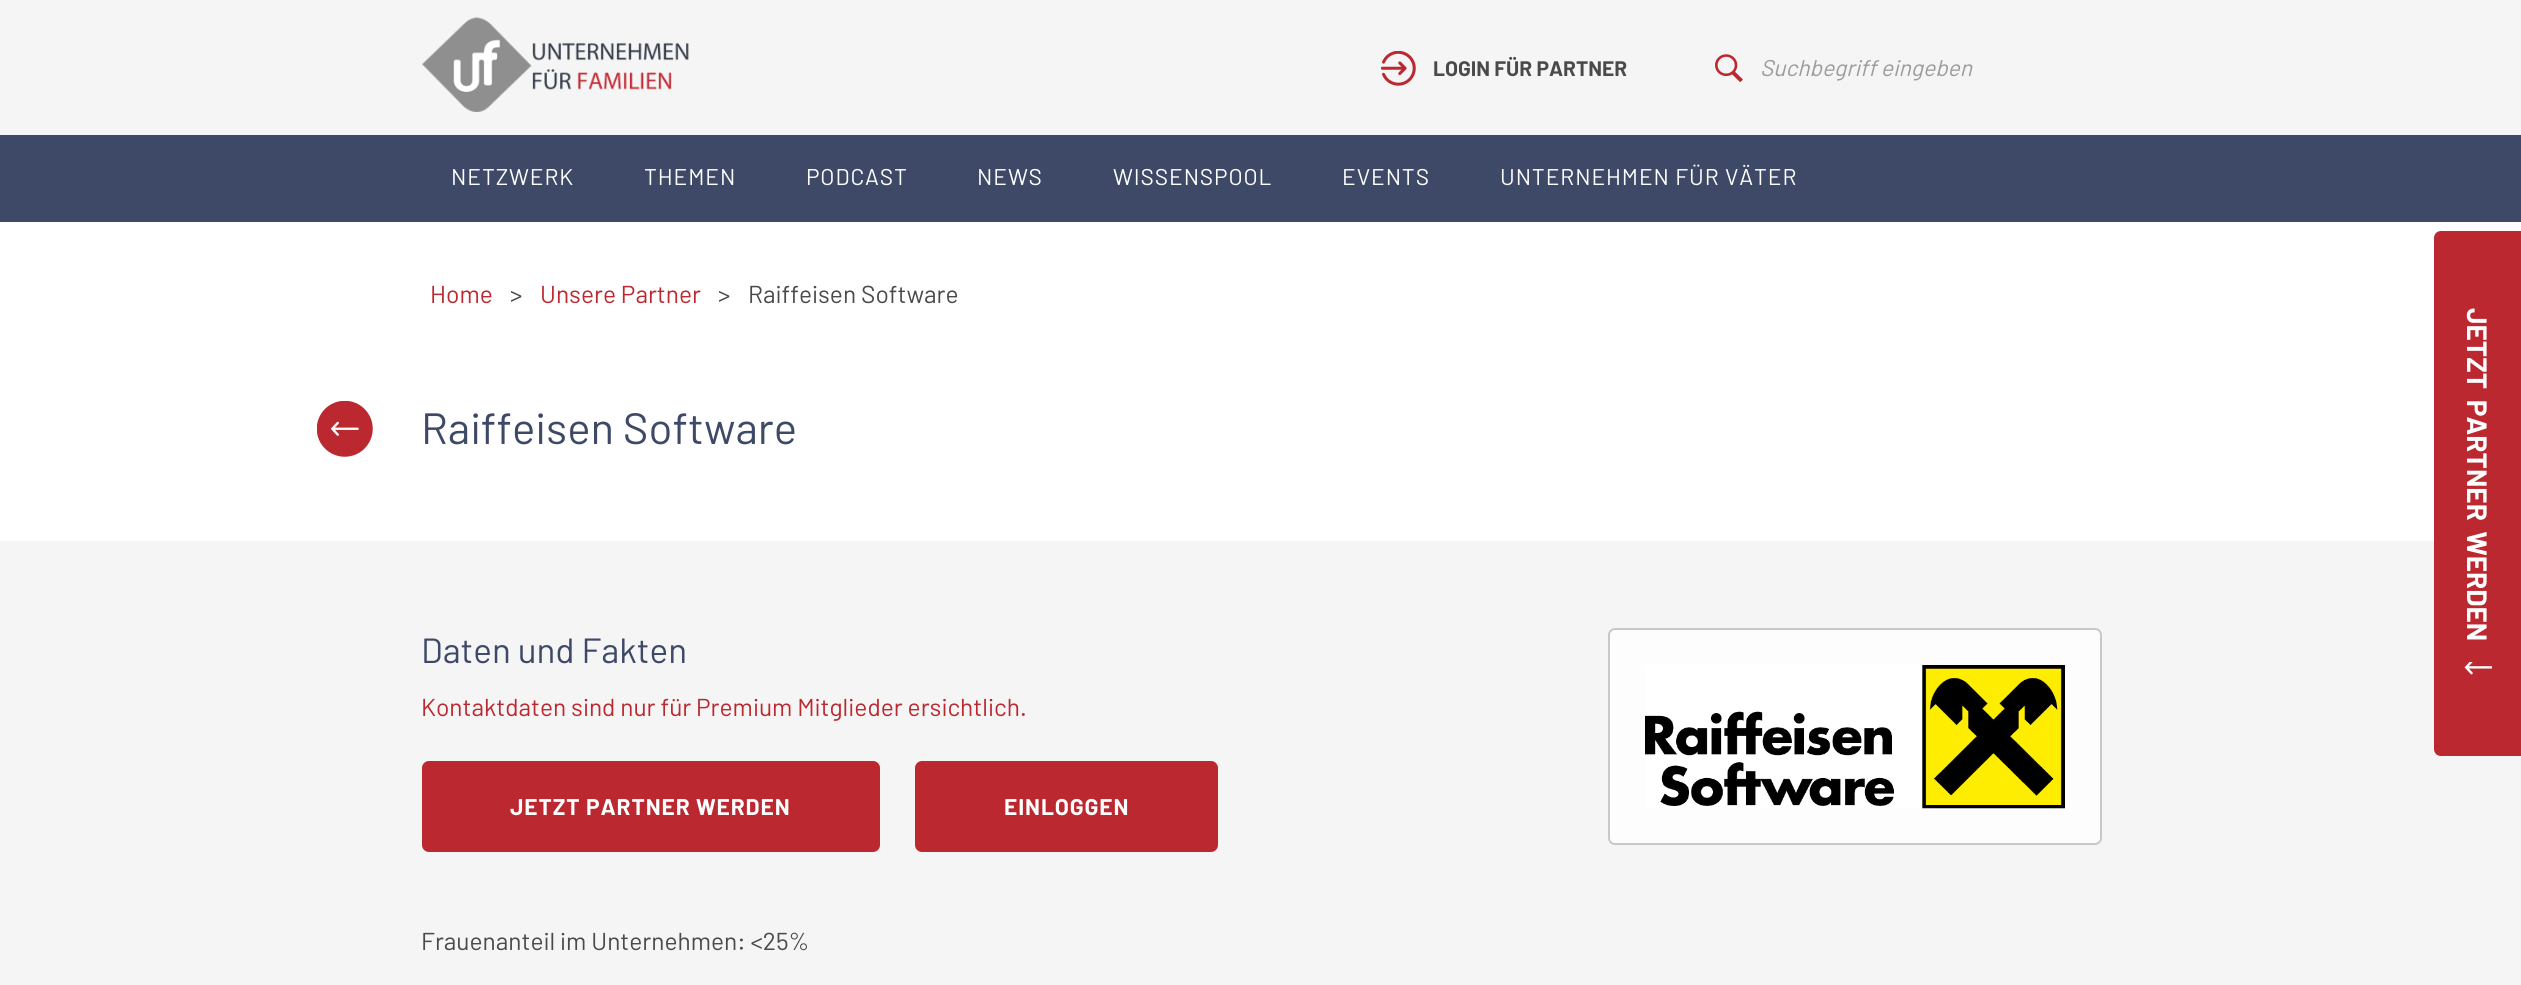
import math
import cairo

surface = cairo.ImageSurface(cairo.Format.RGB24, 2521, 985)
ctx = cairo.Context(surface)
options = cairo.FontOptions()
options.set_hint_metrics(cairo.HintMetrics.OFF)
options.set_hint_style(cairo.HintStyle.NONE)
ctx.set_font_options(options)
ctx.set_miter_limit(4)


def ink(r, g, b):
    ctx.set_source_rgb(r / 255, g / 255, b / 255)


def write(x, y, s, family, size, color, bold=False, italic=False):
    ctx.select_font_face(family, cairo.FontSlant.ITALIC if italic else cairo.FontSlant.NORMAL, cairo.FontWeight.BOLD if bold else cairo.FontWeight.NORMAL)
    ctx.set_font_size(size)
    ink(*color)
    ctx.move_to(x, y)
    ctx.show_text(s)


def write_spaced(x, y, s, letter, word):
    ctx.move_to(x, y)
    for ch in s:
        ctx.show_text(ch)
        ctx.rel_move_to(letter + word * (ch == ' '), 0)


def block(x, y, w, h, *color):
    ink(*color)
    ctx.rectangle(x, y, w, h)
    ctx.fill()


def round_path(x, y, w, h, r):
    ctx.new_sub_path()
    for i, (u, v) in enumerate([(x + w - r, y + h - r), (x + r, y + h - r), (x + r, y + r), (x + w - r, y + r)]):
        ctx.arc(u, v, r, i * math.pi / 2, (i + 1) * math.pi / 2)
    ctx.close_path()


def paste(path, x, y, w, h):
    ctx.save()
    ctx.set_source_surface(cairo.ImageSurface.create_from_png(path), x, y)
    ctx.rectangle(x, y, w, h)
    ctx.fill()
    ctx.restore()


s1 = dict(family="Barlow", size=21, color=(74, 74, 74), bold=True)
s2 = dict(family="Barlow", size=22.75, color=(155, 155, 155), italic=True)
s3 = dict(family="Barlow", size=24.5, color=(188, 40, 48))
s4 = dict(family="Barlow", size=24.5, color=(74, 74, 74))
s5 = dict(family="Barlow", size=43.75, color=(62, 73, 103))
s6 = dict(family="Barlow", size=35, color=(62, 73, 103))

ink(255, 255, 255)
ctx.paint()
block(0, 0, 2521, 135, 245, 245, 245)
paste("pic1.png", 421, 17, 268, 95)
paste("pic2.png", 1381, 51, 35, 35)
write(1433, 76, "LOGIN FÜR PARTNER", **s1)
paste("pic3.png", 1715, 54, 28, 28)
write(1760, 76, "Suchbegriff eingeben", **s2)
block(0, 135, 2521, 87, 62, 73, 103)
ctx.select_font_face("Barlow")
ink(255, 255, 255)
write_spaced(451, 185, "NETZWERK", 0.9, 0)
write_spaced(644, 185, "THEMEN", 0.9, 0)
write_spaced(806, 185, "PODCAST", 0.9, 0)
write_spaced(977, 185, "NEWS", 0.9, 0)
write_spaced(1113, 185, "WISSENSPOOL", 0.9, 0)
write_spaced(1342, 185, "EVENTS", 0.9, 0)
write_spaced(1500, 185, "UNTERNEHMEN FÜR VÄTER", 0.9, 0)
write(430, 303, "Home", **s3)
write(510, 303, ">", **s4)
write(540, 303, "Unsere Partner", **s3)
write(718, 303, ">", **s4)
write(748, 303, "Raiffeisen Software", **s4)
paste("pic4.png", 317, 401, 56, 56)
write(421, 444, "Raiffeisen Software", **s5)
block(0, 541, 2521, 444, 245, 245, 245)
write(421, 663, "Daten und Fakten", **s6)
write(421, 716, "Kontaktdaten sind nur für Premium Mitglieder ersichtlich.", **s3)
round_path(423, 762, 456, 89, 6)
ctx.fill_preserve()
ctx.stroke()
ctx.select_font_face("Barlow", cairo.FontSlant.NORMAL, cairo.FontWeight.BOLD)
ctx.set_font_size(22.75)
ink(255, 255, 255)
write_spaced(510, 815, "JETZT PARTNER WERDEN", 0.9, 0)
ink(188, 40, 48)
round_path(916, 762, 301, 89, 6)
ctx.fill_preserve()
ctx.stroke()
ink(255, 255, 255)
write_spaced(1004, 815, "EINLOGGEN", 0.9, 0)
write(421, 950, "Frauenanteil im Unternehmen: <25%", **s4)
ink(253, 253, 253)
round_path(1609, 629, 492, 215, 6)
ctx.fill_preserve()
ink(200, 200, 200)
ctx.stroke()
paste("pic5.png", 1645, 665, 420, 144)
ink(188, 40, 48)
ctx.new_path()
ctx.move_to(2441, 231)
ctx.line_to(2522, 231)
ctx.line_to(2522, 756)
ctx.line_to(2441, 756)
ctx.curve_to(2437, 756, 2434, 753, 2434, 749)
ctx.line_to(2434, 238)
ctx.curve_to(2434, 234, 2437, 231, 2441, 231)
ctx.close_path()
ctx.fill()
ctx.select_font_face("Barlow", cairo.FontSlant.NORMAL, cairo.FontWeight.BOLD)
ctx.set_font_size(28)
ink(255, 255, 255)
ctx.save()
ctx.translate(2467, 308)
ctx.rotate(90 * math.pi / 180)
write_spaced(0, 0, "JETZT PARTNER WERDEN", 0, 5)
ctx.restore()
paste("pic6.png", 2464, 662, 28, 13)
surface.write_to_png("screenshot.png")
